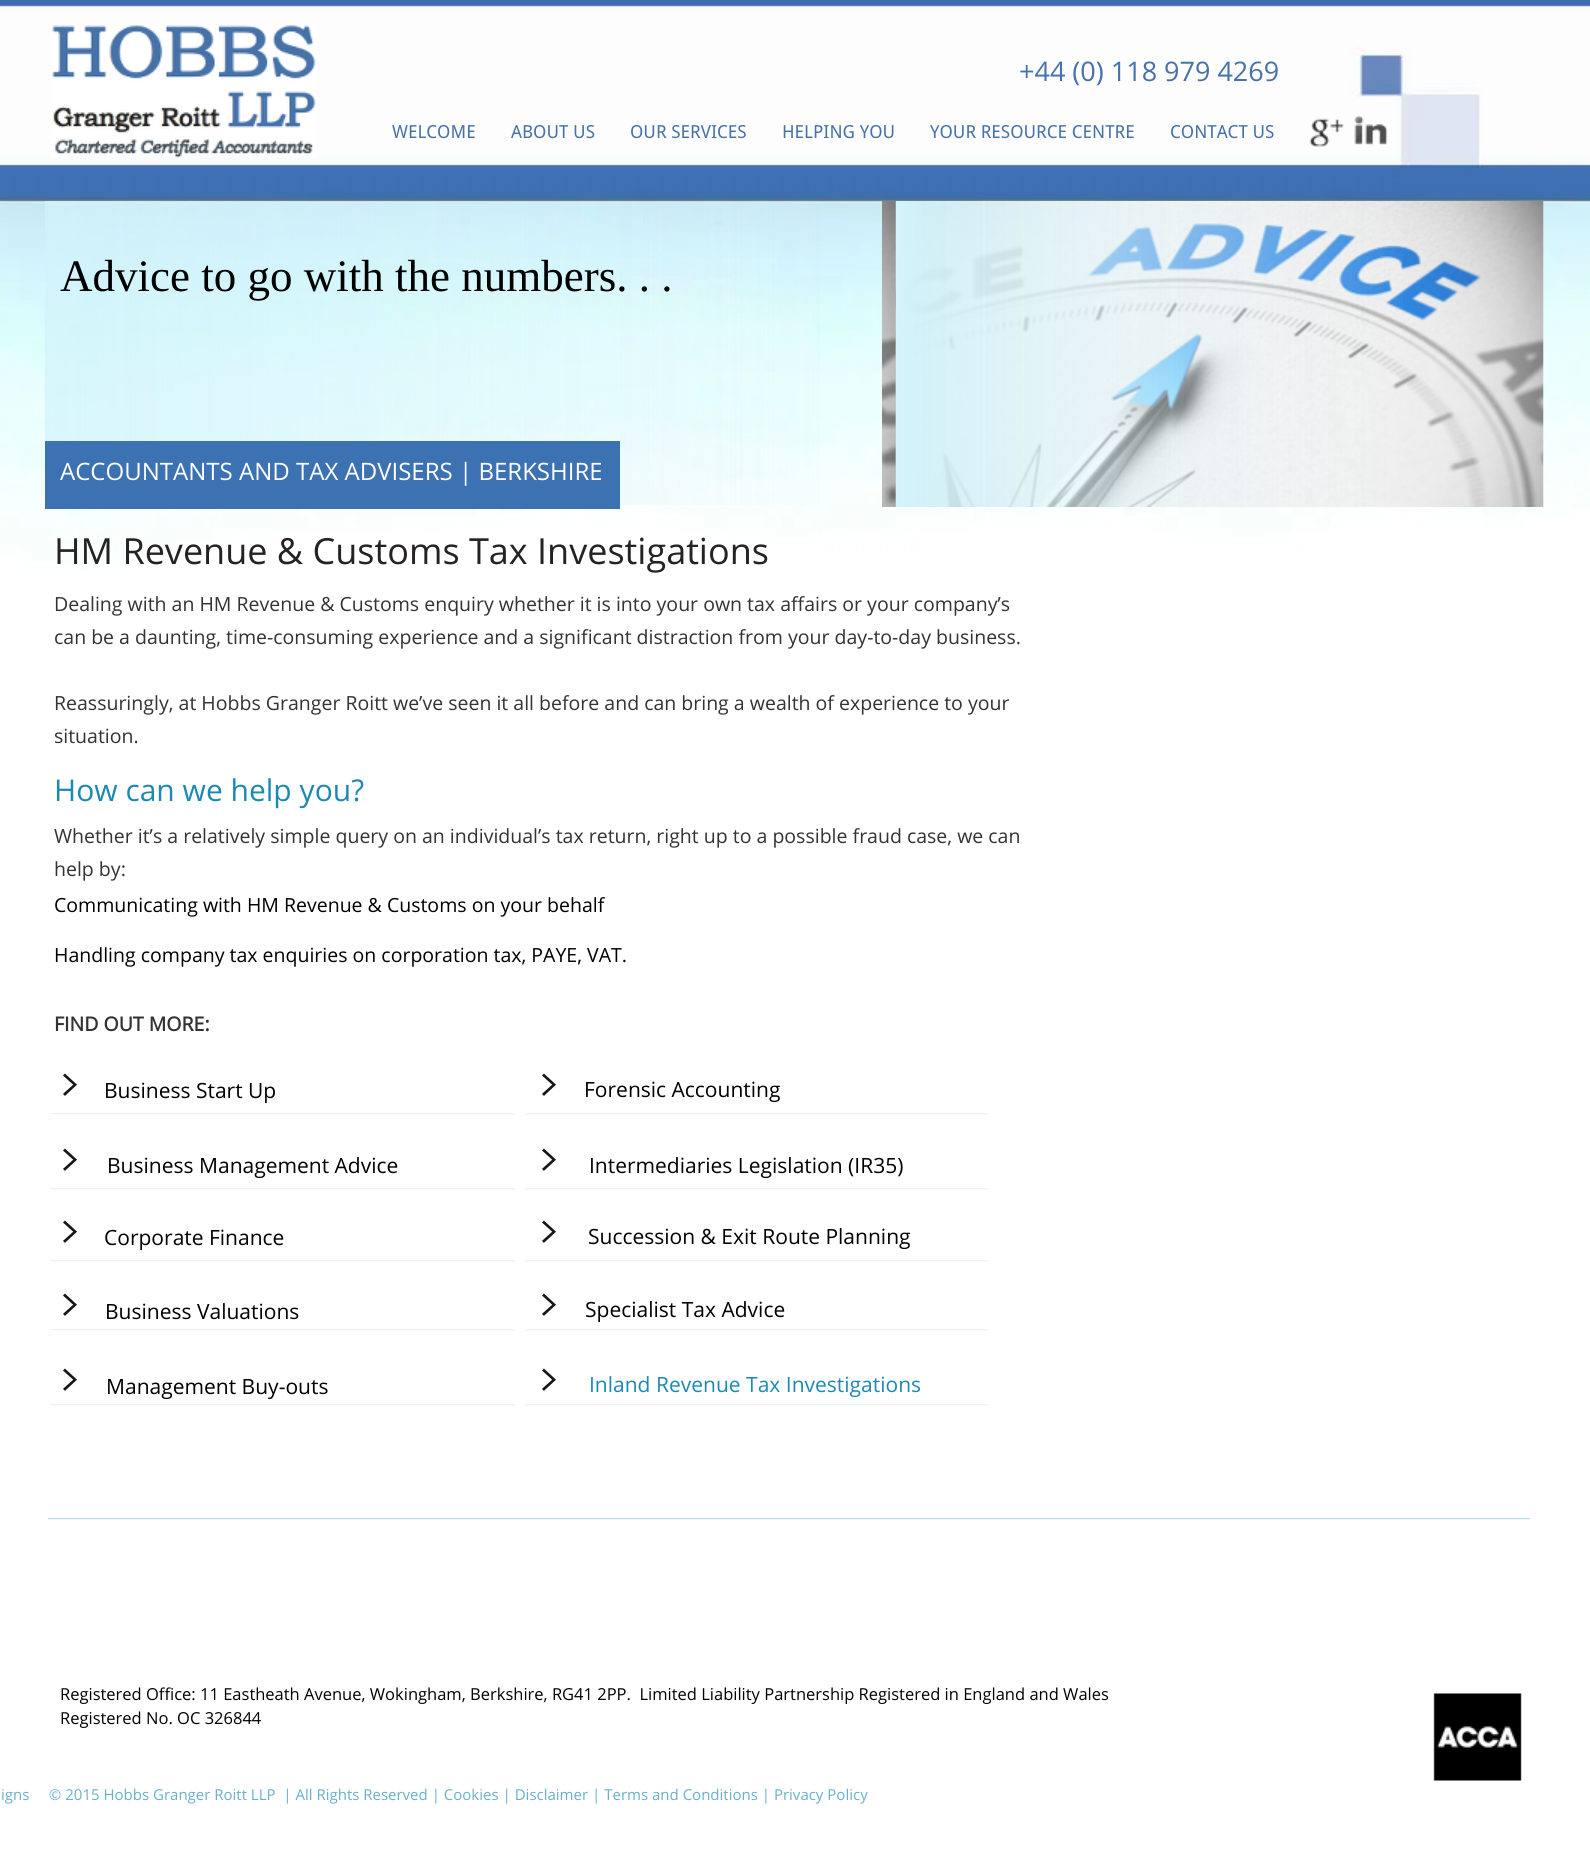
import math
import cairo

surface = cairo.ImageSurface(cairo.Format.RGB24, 1590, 1858)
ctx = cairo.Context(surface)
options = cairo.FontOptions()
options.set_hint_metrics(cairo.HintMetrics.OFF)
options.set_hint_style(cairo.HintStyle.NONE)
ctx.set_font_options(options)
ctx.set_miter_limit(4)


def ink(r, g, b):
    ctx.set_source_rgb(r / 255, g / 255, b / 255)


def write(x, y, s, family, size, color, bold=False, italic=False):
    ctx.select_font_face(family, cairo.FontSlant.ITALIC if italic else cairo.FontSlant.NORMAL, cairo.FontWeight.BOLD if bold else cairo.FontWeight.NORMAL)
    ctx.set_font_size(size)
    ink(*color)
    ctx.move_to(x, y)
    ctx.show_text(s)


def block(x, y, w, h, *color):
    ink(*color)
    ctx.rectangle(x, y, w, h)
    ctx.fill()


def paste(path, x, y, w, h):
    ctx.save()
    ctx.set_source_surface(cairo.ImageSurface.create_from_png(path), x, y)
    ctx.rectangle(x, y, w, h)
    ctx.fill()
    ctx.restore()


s1 = dict(family="Open Sans", size=27, color=(70, 114, 169))
s2 = dict(family="Droid Sans", size=18, color=(70, 114, 169))
s3 = dict(family="Liberation Serif", size=45, color=(0, 0, 0))
s4 = dict(family="Open Sans", size=24, color=(255, 255, 255))
s5 = dict(family="Open Sans", size=36, color=(37, 34, 34))
s6 = dict(family="Open Sans", size=19.5, color=(51, 51, 51))
s7 = dict(family="Open Sans", size=30, color=(29, 137, 179))
s8 = dict(family="Open Sans", size=19.5, color=(0, 0, 0))
s9 = dict(family="Open Sans", size=19.5, color=(51, 51, 51), bold=True)
s10 = dict(family="Nobile", size=38, color=(22, 22, 23))
s11 = dict(family="Open Sans", size=21, color=(0, 0, 0))
s12 = dict(family="Open Sans", size=21, color=(29, 137, 179))
s13 = dict(family="Open Sans", size=16.5, color=(0, 0, 0))
s14 = dict(family="Open Sans", size=15, color=(104, 176, 204))

ink(255, 255, 255)
ctx.paint()
paste("pic1.png", 0, 0, 1590, 571)
paste("pic2.png", 51, 25, 265, 133)
write(1019, 81, "+44 (0) 118 979 4269", **s1)
write(392, 138, "WELCOME", **s2)
write(511, 138, "ABOUT US", **s2)
write(630, 138, "OUR SERVICES", **s2)
write(782, 138, "HELPING YOU", **s2)
write(930, 138, "YOUR RESOURCE CENTRE", **s2)
write(1170, 138, "CONTACT US", **s2)
paste("pic3.png", 1309, 118, 35, 29)
paste("pic4.png", 1354, 115, 34, 30)
paste("pic5.png", 45, 201, 775, 305)
paste("pic6.png", 882, 201, 662, 306)
write(60, 291, "Advice to go with the numbers. . .", **s3)
paste("pic7.png", 895, 201, 508, 306)
block(45, 441, 575, 68, 60, 113, 178)
write(60, 480, "ACCOUNTANTS AND TAX ADVISERS | BERKSHIRE", **s4)
write(54, 564, "HM Revenue & Customs Tax Investigations", **s5)
write(54, 611, "Dealing with an HM Revenue & Customs enquiry whether it is into your own tax affairs or your company’s", **s6)
write(54, 644, "can be a daunting, time-consuming experience and a significant distraction from your day-to-day business.", **s6)
write(54, 710, "Reassuringly, at Hobbs Granger Roitt we’ve seen it all before and can bring a wealth of experience to your", **s6)
write(54, 743, "situation.", **s6)
write(54, 801, "How can we help you?", **s7)
write(54, 843, "Whether it’s a relatively simple query on an individual’s tax return, right up to a possible fraud case, we can", **s6)
write(54, 876, "help by:", **s6)
write(54, 912, "Communicating with HM Revenue & Customs on your behalf", **s8)
write(54, 962, "Handling company tax enquiries on corporation tax, PAYE, VAT.", **s8)
write(54, 1031, "FIND OUT MORE:", **s9)
write(57, 1097, ">", **s10)
write(104, 1098, "Business Start Up", **s11)
write(536, 1097, ">", **s10)
write(584, 1097, "Forensic Accounting", **s11)
paste("pic8.png", 51, 1113, 464, 2)
paste("pic8.png", 525, 1113, 464, 2)
write(57, 1172, ">", **s10)
write(107, 1173, "Business Management Advice", **s11)
write(536, 1172, ">", **s10)
write(589, 1173, "Intermediaries Legislation (IR35)", **s11)
paste("pic8.png", 51, 1188, 464, 2)
paste("pic8.png", 525, 1188, 464, 2)
write(57, 1244, ">", **s10)
write(104, 1245, "Corporate Finance", **s11)
write(536, 1244, ">", **s10)
write(588, 1244, "Succession & Exit Route Planning", **s11)
paste("pic8.png", 51, 1260, 464, 2)
paste("pic8.png", 525, 1260, 464, 2)
write(57, 1317, ">", **s10)
write(105, 1319, "Business Valuations", **s11)
write(536, 1317, ">", **s10)
write(585, 1317, "Specialist Tax Advice", **s11)
paste("pic8.png", 51, 1329, 464, 2)
paste("pic8.png", 525, 1329, 464, 2)
write(57, 1392, ">", **s10)
write(106, 1394, "Management Buy-outs", **s11)
write(536, 1392, ">", **s10)
write(589, 1392, "Inland Revenue Tax Investigations", **s12)
paste("pic8.png", 51, 1404, 464, 2)
paste("pic8.png", 525, 1404, 464, 2)
paste("pic9.png", 48, 1518, 1482, 2)
write(60, 1700, "Registered Office: 11 Eastheath Avenue, Wokingham, Berkshire, RG41 2PP.  Limited Liability Partnership Registered in England and Wales", **s13)
write(60, 1724, "Registered No. OC 326844", **s13)
paste("pic10.png", 1433, 1693, 89, 88)
write(1, 1800, "igns     © 2015 Hobbs Granger Roitt LLP  | All Rights Reserved | Cookies | Disclaimer | Terms and Conditions | Privacy Policy", **s14)
surface.write_to_png("screenshot.png")
